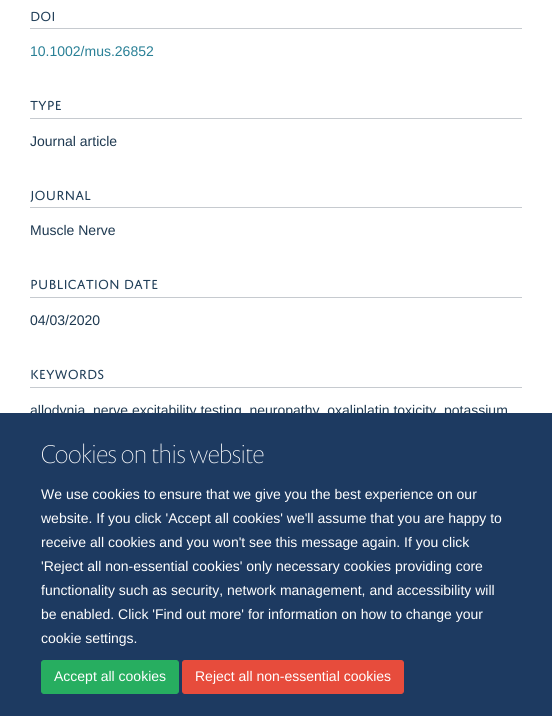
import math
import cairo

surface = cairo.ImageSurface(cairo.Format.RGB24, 552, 716)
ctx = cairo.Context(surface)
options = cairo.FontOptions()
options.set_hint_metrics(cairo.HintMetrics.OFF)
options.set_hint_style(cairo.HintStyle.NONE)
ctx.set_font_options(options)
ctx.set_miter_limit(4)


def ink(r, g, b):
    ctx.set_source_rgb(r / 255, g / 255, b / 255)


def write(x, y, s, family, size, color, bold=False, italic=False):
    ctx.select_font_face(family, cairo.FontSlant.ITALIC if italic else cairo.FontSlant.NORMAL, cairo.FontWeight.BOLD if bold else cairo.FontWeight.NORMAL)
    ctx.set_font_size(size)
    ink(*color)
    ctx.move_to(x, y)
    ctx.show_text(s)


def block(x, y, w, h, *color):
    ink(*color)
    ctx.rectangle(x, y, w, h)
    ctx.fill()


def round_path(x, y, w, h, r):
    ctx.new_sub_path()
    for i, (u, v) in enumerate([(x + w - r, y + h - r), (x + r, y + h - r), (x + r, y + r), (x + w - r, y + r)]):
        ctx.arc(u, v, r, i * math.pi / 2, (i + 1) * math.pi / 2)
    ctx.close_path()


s1 = dict(family="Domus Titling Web", size=14, color=(32, 62, 88))
s2 = dict(family="Liberation Sans", size=14, color=(41, 128, 150))
s3 = dict(family="Liberation Sans", size=14, color=(29, 56, 80))
s4 = dict(family="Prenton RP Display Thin", size=26, color=(255, 255, 255))
s5 = dict(family="Liberation Sans", size=14, color=(255, 255, 255))

ink(255, 255, 255)
ctx.paint()
block(30, 28, 492, 1, 198, 202, 207)
write(30, 21, "DOI", **s1)
write(30, 56, "10.1002/mus.26852", **s2)
block(30, 118, 492, 1, 198, 202, 207)
write(30, 110, "TYPE", **s1)
write(30, 146, "Journal article", **s3)
block(30, 207, 492, 1, 198, 202, 207)
write(30, 200, "JOURNAL", **s1)
write(30, 235, "Muscle Nerve", **s3)
block(30, 297, 492, 1, 198, 202, 207)
write(30, 289, "PUBLICATION DATE", **s1)
write(30, 325, "04/03/2020", **s3)
block(30, 387, 492, 1, 198, 202, 207)
write(30, 379, "KEYWORDS", **s1)
write(30, 415, "allodynia, nerve excitability testing, neuropathy, oxaliplatin toxicity, potassium", **s3)
block(0, 413, 552, 303, 29, 58, 97)
write(41, 463, "Cookies on this website", **s4)
write(41, 499, "We use cookies to ensure that we give you the best experience on our", **s5)
write(41, 523, "website. If you click 'Accept all cookies' we'll assume that you are happy to", **s5)
write(41, 547, "receive all cookies and you won't see this message again. If you click", **s5)
write(41, 571, "'Reject all non-essential cookies' only necessary cookies providing core", **s5)
write(41, 595, "functionality such as security, network management, and accessibility will", **s5)
write(41, 619, "be enabled. Click 'Find out more' for information on how to change your", **s5)
write(41, 643, "cookie settings.", **s5)
ink(39, 174, 96)
round_path(41.5, 660.5, 137, 33, 2.5)
ctx.fill_preserve()
ctx.set_line_width(1)
ctx.stroke()
write(54, 681, "Accept all cookies", **s5)
ink(231, 76, 60)
round_path(182.5, 660.5, 221, 33, 2.5)
ctx.fill_preserve()
ctx.stroke()
write(195, 681, "Reject all non-essential cookies", **s5)
surface.write_to_png("screenshot.png")
